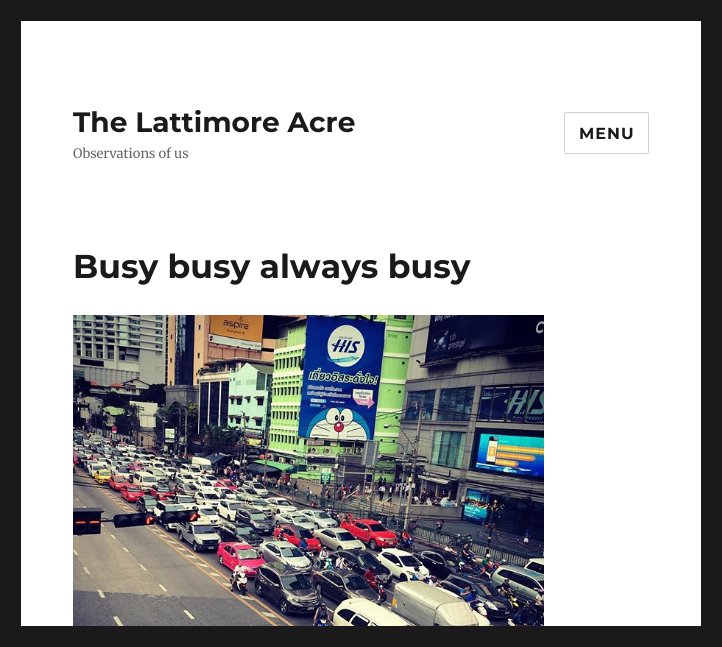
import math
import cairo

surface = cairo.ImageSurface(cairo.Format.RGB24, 722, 647)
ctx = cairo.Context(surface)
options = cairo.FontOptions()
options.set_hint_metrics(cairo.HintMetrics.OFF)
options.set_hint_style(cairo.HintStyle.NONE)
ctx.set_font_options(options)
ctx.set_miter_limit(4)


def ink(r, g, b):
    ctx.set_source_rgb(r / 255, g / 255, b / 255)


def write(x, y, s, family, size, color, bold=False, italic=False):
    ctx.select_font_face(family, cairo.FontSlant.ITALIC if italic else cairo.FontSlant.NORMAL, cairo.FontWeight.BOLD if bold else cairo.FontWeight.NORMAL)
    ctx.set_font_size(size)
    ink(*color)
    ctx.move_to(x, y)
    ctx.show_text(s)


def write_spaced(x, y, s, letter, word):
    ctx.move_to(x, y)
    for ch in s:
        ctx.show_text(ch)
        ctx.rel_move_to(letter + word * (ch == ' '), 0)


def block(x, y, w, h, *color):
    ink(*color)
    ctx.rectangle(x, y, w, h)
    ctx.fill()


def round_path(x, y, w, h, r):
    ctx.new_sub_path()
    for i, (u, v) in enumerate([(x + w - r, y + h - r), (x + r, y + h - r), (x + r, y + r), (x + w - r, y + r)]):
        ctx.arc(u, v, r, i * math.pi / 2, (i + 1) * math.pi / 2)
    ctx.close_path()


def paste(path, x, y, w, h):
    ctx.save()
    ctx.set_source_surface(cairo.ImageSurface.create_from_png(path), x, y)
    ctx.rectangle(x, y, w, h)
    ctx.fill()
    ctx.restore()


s1 = dict(family="Montserrat", size=28, color=(26, 26, 26), bold=True)
s2 = dict(family="Merriweather", size=13, color=(104, 104, 104))
s3 = dict(family="Montserrat", size=33, color=(26, 26, 26), bold=True)

ink(26, 26, 26)
ctx.paint()
block(21, 21, 680, 605, 255, 255, 255)
write(73, 132, "The Lattimore Acre", **s1)
write(73, 158, "Observations of us", **s2)
round_path(564.5, 112.5, 84, 41, 1.5)
ink(209, 209, 209)
ctx.set_line_width(1)
ctx.stroke()
ctx.select_font_face("Montserrat", cairo.FontSlant.NORMAL, cairo.FontWeight.BOLD)
ctx.set_font_size(16)
ink(26, 26, 26)
write_spaced(579, 139, "MENU", 1, 0)
write(73, 278, "Busy busy always busy", **s3)
paste("pic1.png", 73, 315, 471, 311)
surface.write_to_png("screenshot.png")
